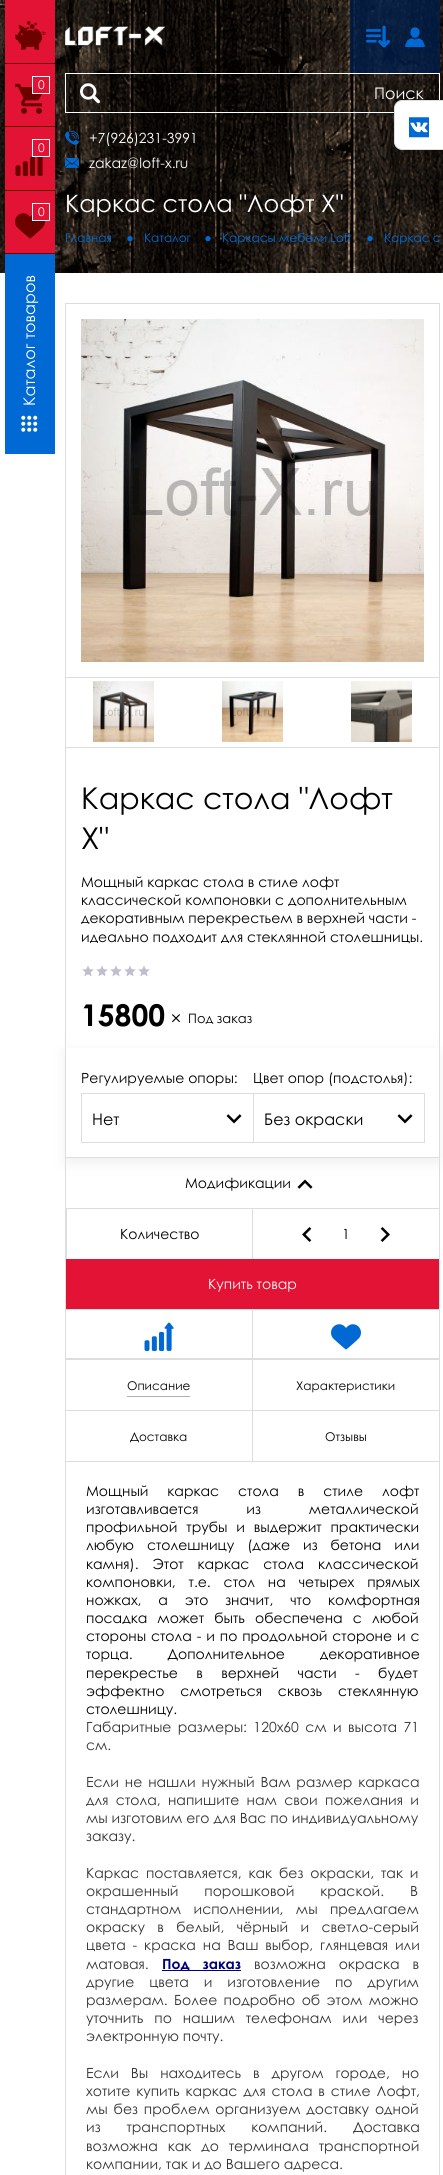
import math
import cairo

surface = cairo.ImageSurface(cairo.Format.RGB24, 443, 2175)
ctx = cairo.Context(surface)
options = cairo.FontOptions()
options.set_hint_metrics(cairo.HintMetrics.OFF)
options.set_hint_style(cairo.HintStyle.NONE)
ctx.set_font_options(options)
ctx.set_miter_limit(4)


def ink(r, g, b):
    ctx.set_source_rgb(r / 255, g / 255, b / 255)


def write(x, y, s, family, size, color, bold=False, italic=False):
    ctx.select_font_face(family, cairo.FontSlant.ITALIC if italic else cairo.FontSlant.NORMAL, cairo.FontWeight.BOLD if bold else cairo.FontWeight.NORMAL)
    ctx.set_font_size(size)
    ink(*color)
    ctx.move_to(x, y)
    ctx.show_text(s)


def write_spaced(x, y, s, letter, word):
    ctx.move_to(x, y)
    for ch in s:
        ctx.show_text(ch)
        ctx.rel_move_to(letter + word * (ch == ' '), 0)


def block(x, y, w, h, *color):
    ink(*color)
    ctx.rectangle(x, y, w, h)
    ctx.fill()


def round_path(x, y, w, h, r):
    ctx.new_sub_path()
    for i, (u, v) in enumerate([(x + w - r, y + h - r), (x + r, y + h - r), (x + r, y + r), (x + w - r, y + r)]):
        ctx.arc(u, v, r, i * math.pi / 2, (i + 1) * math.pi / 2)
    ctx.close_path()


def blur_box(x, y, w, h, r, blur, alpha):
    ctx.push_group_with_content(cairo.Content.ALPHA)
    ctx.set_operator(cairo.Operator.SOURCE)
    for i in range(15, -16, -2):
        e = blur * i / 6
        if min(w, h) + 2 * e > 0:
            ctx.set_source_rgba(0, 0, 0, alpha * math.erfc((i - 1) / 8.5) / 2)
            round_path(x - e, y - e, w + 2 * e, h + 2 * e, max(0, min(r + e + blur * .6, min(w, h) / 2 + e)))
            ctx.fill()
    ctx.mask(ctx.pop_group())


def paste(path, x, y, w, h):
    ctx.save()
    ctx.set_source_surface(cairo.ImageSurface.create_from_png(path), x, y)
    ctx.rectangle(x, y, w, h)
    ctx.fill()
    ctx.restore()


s1 = dict(family="Century Gothic", size=12, color=(255, 255, 255))
s2 = dict(family="Century Gothic", size=16, color=(255, 255, 255))
s3 = dict(family="Century Gothic", size=14, color=(255, 255, 255))
s4 = dict(family="Century Gothic", size=24, color=(255, 255, 255))
s5 = dict(family="Century Gothic", size=12, color=(0, 105, 212))
s6 = dict(family="Century Gothic", size=30, color=(0, 0, 0))
s7 = dict(family="Century Gothic", size=14, color=(0, 0, 0))
s8 = dict(family="Century Gothic", size=30, color=(0, 0, 0), bold=True)
s9 = dict(family="Century Gothic", size=13, color=(0, 0, 0))
s10 = dict(family="Century Gothic", size=16, color=(0, 0, 0))
s11 = dict(family="Century Gothic", size=12, color=(0, 0, 0))
s12 = dict(family="Century Gothic", size=14, color=(51, 51, 51))

ink(255, 255, 255)
ctx.paint()
paste("pic6.png", 0, 0, 443, 273)
block(5, 0, 50, 63, 226, 19, 53)
block(5, 63, 50, 1, 109, 1, 0)
paste("pic1.png", 15, 21, 31, 29)
block(5, 64, 50, 62, 226, 19, 53)
block(5, 126, 50, 1, 109, 1, 0)
paste("pic2.png", 15, 83, 27, 31)
block(33, 87, 9, 6, 226, 19, 53)
ctx.rectangle(32.5, 76.5, 17, 17)
ink(255, 255, 255)
ctx.set_line_width(1)
ctx.stroke()
write(38, 89, "0", **s1)
block(5, 127, 50, 63, 226, 19, 53)
block(5, 190, 50, 1, 109, 1, 0)
paste("pic3.png", 15, 156, 28, 21)
ctx.rectangle(32.5, 139.5, 17, 17)
ink(255, 255, 255)
ctx.stroke()
write(38, 152, "0", **s1)
block(5, 191, 50, 62, 226, 19, 53)
block(5, 253, 50, 1, 109, 1, 0)
paste("pic4.png", 15, 213, 30, 26)
block(33, 213, 12, 7, 226, 19, 53)
ctx.rectangle(32.5, 203.5, 17, 17)
ink(255, 255, 255)
ctx.stroke()
write(38, 216, "0", **s1)
block(5, 254, 50, 200, 0, 105, 212)
ctx.save()
ctx.translate(35, 406)
ctx.rotate(-90 * math.pi / 180)
write(0, 0, "Каталог товаров", **s2)
ctx.restore()
paste("pic5.png", 21, 415, 17, 17)
paste("pic7.png", 65, 26, 100, 20)
ctx.set_source_rgba(0, 0.118, 0.294, 0.8)
ctx.rectangle(350, 0, 90, 73)
ctx.fill()
paste("pic8.png", 366, 25, 25, 23)
paste("pic9.png", 405, 27, 20, 21)
ctx.rectangle(65.5, 73.5, 374, 39)
ink(255, 255, 255)
ctx.stroke()
paste("pic10.png", 80, 83, 20, 21)
write(374, 99, "Поиск", **s2)
paste("pic11.png", 65, 131, 15, 14)
write(89, 143, "+7(926)231-3991", **s3)
paste("pic12.png", 65, 157, 14, 11)
write(89, 168, "zakaz@loft-x.ru", **s3)
write(65, 212, "Каркас стола \"Лофт Х\"", **s4)
write(65, 242, "Главная", **s5)
paste("pic13.png", 127, 236, 6, 6)
write(144, 242, "Каталог", **s5)
paste("pic14.png", 205, 236, 6, 6)
write(222, 242, "Каркасы мебели Loft", **s5)
paste("pic15.png", 367, 236, 6, 6)
write(384, 242, "Каркас с", **s5)
ink(255, 255, 255)
ctx.new_path()
ctx.move_to(402, 100.5)
ctx.line_to(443.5, 100.5)
ctx.line_to(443.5, 149.5)
ctx.line_to(402, 149.5)
ctx.curve_to(398, 149.5, 394.5, 146, 394.5, 142)
ctx.line_to(394.5, 108)
ctx.curve_to(394.5, 104, 398, 100.5, 402, 100.5)
ctx.close_path()
ctx.fill_preserve()
ink(221, 221, 221)
ctx.stroke()
paste("pic16.png", 409, 117, 20, 21)
ctx.rectangle(65.5, 303.5, 374, 444)
ctx.stroke()
paste("pic17.png", 81, 319, 343, 343)
block(66, 677, 373, 1, 221, 221, 221)
paste("pic18.png", 93, 681, 61, 61)
paste("pic19.png", 222, 681, 61, 61)
paste("pic20.png", 351, 681, 61, 61)
block(439, 748, 1, 1427, 221, 221, 221)
block(65, 748, 1, 1427, 221, 221, 221)
write(81, 809, "Каркас стола \"Лофт", **s6)
write(81, 849, "Х\"", **s6)
write(81, 887, "Мощный каркас стола в стиле лофт", **s7)
write(81, 905, "классической компоновки с дополнительным", **s7)
write(81, 923, "декоративным перекрестьем в верхней части -", **s7)
write(81, 942, "идеально подходит для стеклянной столешницы.", **s7)
paste("pic21.png", 82, 965, 68, 12)
write(81, 1026, "15800", **s8)
paste("pic22.png", 172, 1014, 8, 9)
write(188, 1023, "Под заказ", **s9)
block(66, 1358, 373, 2, 221, 221, 221)
block(66, 1157, 373, 1, 221, 221, 221)
paste("pic24.png", 297, 1179, 16, 10)
ctx.save()
ctx.set_fill_rule(cairo.FillRule.EVEN_ODD)
ctx.new_path()
ctx.move_to(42, 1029)
ctx.line_to(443, 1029)
ctx.line_to(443, 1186)
ctx.line_to(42, 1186)
ctx.close_path()
ctx.move_to(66, 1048)
ctx.line_to(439, 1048)
ctx.line_to(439, 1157)
ctx.line_to(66, 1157)
ctx.close_path()
ctx.clip()
ink(221, 221, 221)
blur_box(66, 1053, 373, 109, 0, 7.5, 0.5)
ctx.restore()
write(81, 1083, "Регулируемые опоры:", **s7)
ctx.rectangle(81.5, 1093.5, 172, 49)
ink(221, 221, 221)
ctx.stroke()
write(92, 1125, "Нет", **s10)
paste("pic23.png", 226, 1114, 16, 10)
write(253, 1083, "Цвет опор (подстолья):", **s7)
ctx.rectangle(253.5, 1093.5, 171, 49)
ink(221, 221, 221)
ctx.stroke()
write(264, 1125, "Без окраски", **s10)
paste("pic23.png", 397, 1114, 16, 10)
block(66, 1208, 373, 1, 221, 221, 221)
write(185, 1188, "Модификации", **s7)
block(252, 1209, 1, 50, 221, 221, 221)
block(66, 1209, 1, 50, 221, 221, 221)
write(120, 1239, "Количество", **s7)
paste("pic25.png", 302, 1227, 10, 15)
write(342, 1239, "1", **s7)
paste("pic26.png", 380, 1227, 10, 15)
block(66, 1259, 373, 50, 226, 19, 53)
write(208, 1289, "Купить товар", **s3)
block(66, 1309, 373, 1, 221, 221, 221)
paste("pic27.png", 144, 1322, 30, 30)
block(252, 1310, 1, 48, 221, 221, 221)
paste("pic28.png", 331, 1324, 30, 26)
block(252, 1360, 1, 102, 221, 221, 221)
block(66, 1410, 373, 1, 221, 221, 221)
block(127, 1396, 63, 1, 176, 176, 176)
write(127, 1390, "Описание", **s11)
write(296, 1390, "Характеристики", **s11)
block(66, 1461, 373, 1, 221, 221, 221)
write(130, 1441, "Доставка", **s11)
write(325, 1441, "Отзывы", **s11)
ctx.set_font_size(14)
write_spaced(86, 1496, "Мощный каркас стола в стиле лофт", 0, 15)
write_spaced(86, 1514, "изготавливается из металлической", 0, 44)
write_spaced(86, 1532, "профильной трубы и выдержит практически", 0, 5)
write_spaced(86, 1550, "любую столешницу (даже из бетона или", 0, 9)
write_spaced(86, 1569, "камня). Этот каркас стола классической", 0, 10)
write_spaced(86, 1587, "компоновки, т.е. стол на четырех прямых", 0, 9)
write_spaced(86, 1605, "ножках, а это значит, что комфортная", 0, 13)
write_spaced(86, 1623, "посадка может быть обеспечена с любой", 0, 6.25)
write_spaced(86, 1641, "стороны стола - и по продольной стороне и с", 0, 1)
write_spaced(86, 1659, "торца. Дополнительное декоративное", 0, 31)
write_spaced(86, 1678, "перекрестье в верхней части - будет", 0, 14.5)
write_spaced(86, 1696, "эффектно смотреться сквозь стеклянную", 0, 12)
write(86, 1714, "столешницу.", **s7)
ink(51, 51, 51)
write_spaced(86, 1732, "Габаритные размеры: 120х60 см и высота 71", 0, 2.5)
write(86, 1750, "см.", **s12)
write_spaced(86, 1787, "Если не нашли нужный Вам размер каркаса", 0, 2)
write_spaced(86, 1805, "для стола, напишите нам свои пожелания и", 0, 3.5)
write(86, 1823, "мы изготовим его для Вас по индивидуальному", **s12)
write(86, 1841, "заказу.", **s12)
write_spaced(86, 1878, "Каркас поставляется, как без окраски, так и", 0, 3)
write_spaced(86, 1896, "окрашенный порошковой краской. В", 0, 22)
write_spaced(86, 1914, "стандартном исполнении, мы предлагаем", 0, 8.5)
write_spaced(86, 1932, "окраску в белый, чёрный и светло-серый", 0, 8.5)
write_spaced(86, 1950, "цвета - краска на Ваш выбор, глянцевая или", 0, 3)
write(86, 1969, "матовая.", **s12)
block(162, 1970, 79, 1, 0, 0, 128)
ctx.select_font_face("Century Gothic", cairo.FontSlant.NORMAL, cairo.FontWeight.BOLD)
write_spaced(162, 1969, "Под заказ", 0, 9)
ctx.select_font_face("Century Gothic")
ink(51, 51, 51)
write_spaced(254, 1969, "возможна окраска в", 0, 9)
write_spaced(86, 1987, "другие цвета и изготовление по другим", 0, 11)
write_spaced(86, 2005, "размерам. Более подробно об этом можно", 0, 2.5)
write_spaced(86, 2023, "уточнить по нашим телефонам или через", 0, 7)
write(86, 2041, "электронную почту.", **s12)
write_spaced(86, 2078, "Если Вы находитесь в другом городе, но", 0, 8)
write_spaced(86, 2096, "хотите купить каркас для стола в стиле Лофт,", 0, 2)
write_spaced(86, 2114, "мы без проблем организуем доставку одной", 0, 2)
write_spaced(86, 2132, "из транспортных компаний. Доставка", 0, 22)
write_spaced(86, 2151, "возможна как до терминала транспортной", 0, 6)
write(86, 2169, "компании, так и до Вашего адреса.", **s12)
surface.write_to_png("screenshot.png")
